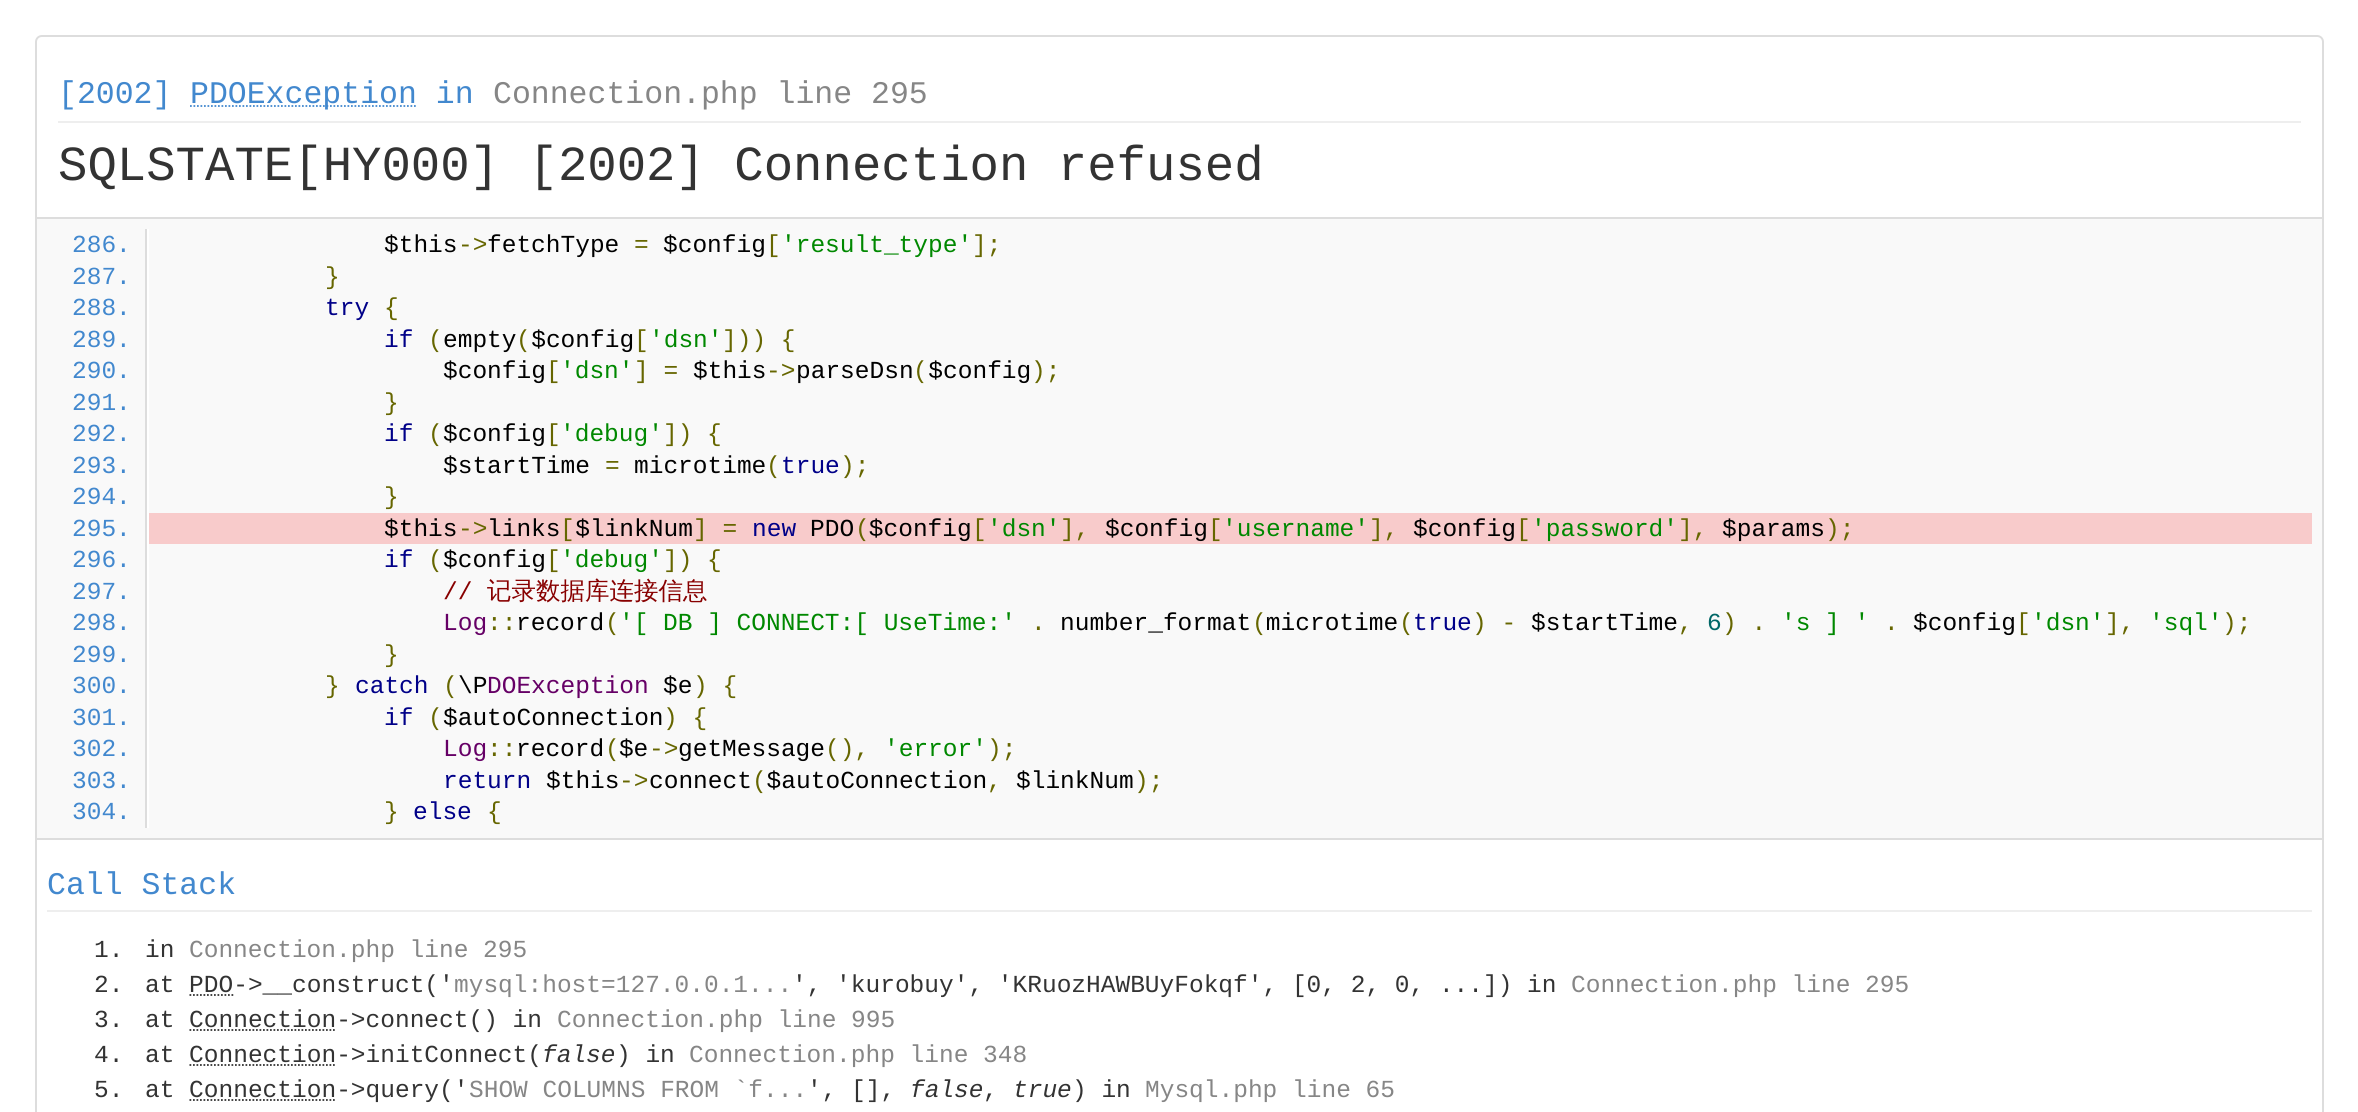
import math
import cairo

surface = cairo.ImageSurface(cairo.Format.RGB24, 2358, 1112)
ctx = cairo.Context(surface)
options = cairo.FontOptions()
options.set_hint_metrics(cairo.HintMetrics.OFF)
options.set_hint_style(cairo.HintStyle.NONE)
ctx.set_font_options(options)
ctx.set_miter_limit(4)


def ink(r, g, b):
    ctx.set_source_rgb(r / 255, g / 255, b / 255)


def write(x, y, s, family, size, color, bold=False, italic=False):
    ctx.select_font_face(family, cairo.FontSlant.ITALIC if italic else cairo.FontSlant.NORMAL, cairo.FontWeight.BOLD if bold else cairo.FontWeight.NORMAL)
    ctx.set_font_size(size)
    ink(*color)
    ctx.move_to(x, y)
    ctx.show_text(s)


def block(x, y, w, h, *color):
    ink(*color)
    ctx.rectangle(x, y, w, h)
    ctx.fill()


s1 = dict(family="Liberation Mono", size=31.5, color=(66, 136, 206))
s2 = dict(family="Liberation Mono", size=31.5, color=(134, 134, 134))
s3 = dict(family="Liberation Mono", size=49, color=(51, 51, 51))
s4 = dict(family="Liberation Mono", size=24.5, color=(66, 136, 206))
s5 = dict(family="Liberation Mono", size=24.5, color=(0, 0, 0))
s6 = dict(family="Liberation Mono", size=24.5, color=(102, 102, 0))
s7 = dict(family="Liberation Mono", size=24.5, color=(0, 136, 0))
s8 = dict(family="Liberation Mono", size=24.5, color=(0, 0, 136))
s9 = dict(family="Liberation Mono", size=24.5, color=(136, 0, 0))
s10 = dict(family="WenQuanYi Zen Hei Medium", size=24.5, color=(136, 0, 0))
s11 = dict(family="Liberation Mono", size=24.5, color=(102, 0, 102))
s12 = dict(family="Liberation Mono", size=24.5, color=(0, 102, 102))
s13 = dict(family="Liberation Mono", size=24.5, color=(51, 51, 51))
s14 = dict(family="Liberation Mono", size=24.5, color=(134, 134, 134))
s15 = dict(family="Liberation Mono", size=24.5, color=(51, 51, 51), italic=True)

ink(255, 255, 255)
ctx.paint()
ink(221, 221, 221)
ctx.set_fill_rule(cairo.FillRule.EVEN_ODD)
ctx.new_path()
ctx.move_to(42, 35)
ctx.line_to(2317, 35)
ctx.curve_to(2321, 35, 2324, 38, 2324, 42)
ctx.line_to(2324, 217)
ctx.line_to(35, 217)
ctx.line_to(35, 42)
ctx.curve_to(35, 38, 38, 35, 42, 35)
ctx.close_path()
ctx.move_to(42, 37)
ctx.line_to(2317, 37)
ctx.curve_to(2320, 37, 2322, 39, 2322, 42)
ctx.line_to(2322, 217)
ctx.line_to(37, 217)
ctx.line_to(37, 42)
ctx.curve_to(37, 39, 39, 37, 42, 37)
ctx.close_path()
ctx.fill()
block(58, 121, 2243, 2, 238, 238, 238)
write(58, 103, "[2002]", **s1)
ctx.new_path()
ctx.move_to(190, 106)
ctx.line_to(417, 106)
ctx.set_line_width(1.8)
ctx.set_dash([1.75, 1.75])
ctx.stroke()
write(190, 103, "PDOException in", **s1)
write(493, 103, "Connection.php line 295", **s2)
write(58, 180, "SQLSTATE[HY000] [2002] Connection refused", **s3)
ink(249, 249, 249)
ctx.rectangle(36, 218, 2287, 621)
ctx.fill_preserve()
ink(221, 221, 221)
ctx.set_line_width(2)
ctx.set_dash([])
ctx.stroke()
block(145, 229, 2, 599, 221, 221, 221)
write(72, 252, "286.", **s4)
block(147, 229, 2, 599, 255, 255, 255)
write(384, 252, "$this", **s5)
write(458, 252, "->", **s6)
write(487, 252, "fetchType", **s5)
write(634, 252, "=", **s6)
write(663, 252, "$config", **s5)
write(766, 252, "[", **s6)
write(781, 252, "'result_type'", **s7)
write(972, 252, "];", **s6)
write(72, 284, "287.", **s4)
write(325, 284, "}", **s6)
write(72, 315, "288.", **s4)
write(325, 315, "try", **s8)
write(384, 315, "{", **s6)
write(72, 347, "289.", **s4)
write(384, 347, "if", **s8)
write(428, 347, "(", **s6)
write(443, 347, "empty $config", **s5)
write(516, 347, "(", **s6)
write(634, 347, "[", **s6)
write(649, 347, "'dsn'", **s7)
write(722, 347, "])) {", **s6)
write(72, 378, "290.", **s4)
write(443, 378, "$config", **s5)
write(546, 378, "[", **s6)
write(560, 378, "'dsn'", **s7)
write(634, 378, "] =", **s6)
write(693, 378, "$this", **s5)
write(796, 378, "parseDsn $config", **s5)
write(766, 378, "->", **s6)
write(913, 378, "(", **s6)
write(1031, 378, ");", **s6)
write(72, 410, "291.", **s4)
write(384, 410, "}", **s6)
write(72, 441, "292.", **s4)
write(384, 441, "if", **s8)
write(428, 441, "(", **s6)
write(443, 441, "$config", **s5)
write(546, 441, "[", **s6)
write(560, 441, "'debug'", **s7)
write(663, 441, "]) {", **s6)
write(72, 473, "293.", **s4)
write(443, 473, "$startTime", **s5)
write(605, 473, "=", **s6)
write(634, 473, "microtime", **s5)
write(766, 473, "(", **s6)
write(781, 473, "true", **s8)
write(840, 473, ");", **s6)
write(72, 504, "294.", **s4)
write(384, 504, "}", **s6)
block(149, 513, 2163, 31, 248, 203, 203)
write(72, 536, "295.", **s4)
write(384, 536, "$this", **s5)
write(487, 536, "links $linkNum", **s5)
write(560, 536, "[", **s6)
write(693, 536, "] =", **s6)
write(810, 536, "PDO $config", **s5)
write(458, 536, "->", **s6)
write(752, 536, "new", **s8)
write(855, 536, "(", **s6)
write(972, 536, "[", **s6)
write(987, 536, "'dsn'", **s7)
write(1060, 536, "],", **s6)
write(1105, 536, "$config", **s5)
write(1208, 536, "[", **s6)
write(1222, 536, "'username'", **s7)
write(1369, 536, "],", **s6)
write(1413, 536, "$config", **s5)
write(1516, 536, "[", **s6)
write(1531, 536, "'password'", **s7)
write(1678, 536, "],", **s6)
write(1722, 536, "$params", **s5)
write(1825, 536, ");", **s6)
write(72, 567, "296.", **s4)
write(384, 567, "if", **s8)
write(428, 567, "(", **s6)
write(443, 567, "$config", **s5)
write(546, 567, "[", **s6)
write(560, 567, "'debug'", **s7)
write(663, 567, "]) {", **s6)
write(72, 599, "297.", **s4)
write(443, 599, "//", **s9)
write(487, 599, "记录数据库连接信息", **s10)
write(72, 630, "298.", **s4)
write(516, 630, "record", **s5)
write(605, 630, "(", **s6)
write(619, 630, "'[ DB ] CONNECT:[ UseTime:'", **s7)
write(1060, 630, "number_format microtime", **s5)
write(443, 630, "Log", **s11)
write(487, 630, "::", **s6)
write(1031, 630, ".", **s6)
write(1252, 630, "(", **s6)
write(1399, 630, "(", **s6)
write(1413, 630, "true", **s8)
write(1472, 630, ") -", **s6)
write(1531, 630, "$startTime", **s5)
write(1678, 630, ",", **s6)
write(1707, 630, "6", **s12)
write(1722, 630, ") .", **s6)
write(1781, 630, "'s ] '", **s7)
write(1884, 630, ".", **s6)
write(1913, 630, "$config", **s5)
write(2016, 630, "[", **s6)
write(2031, 630, "'dsn'", **s7)
write(2105, 630, "],", **s6)
write(2149, 630, "'sql'", **s7)
write(2222, 630, ");", **s6)
write(72, 662, "299.", **s4)
write(384, 662, "}", **s6)
write(72, 693, "300.", **s4)
write(325, 693, "}", **s6)
write(355, 693, "catch", **s8)
write(443, 693, "(", **s6)
write(458, 693, "\\P", **s5)
write(487, 693, "DOException", **s11)
write(663, 693, "$e", **s5)
write(693, 693, ") {", **s6)
write(72, 725, "301.", **s4)
write(384, 725, "if", **s8)
write(428, 725, "(", **s6)
write(443, 725, "$autoConnection", **s5)
write(663, 725, ") {", **s6)
write(72, 756, "302.", **s4)
write(516, 756, "record $e", **s5)
write(443, 756, "Log", **s11)
write(487, 756, "::", **s6)
write(605, 756, "(", **s6)
write(649, 756, "->", **s6)
write(678, 756, "getMessage", **s5)
write(825, 756, "(),", **s6)
write(884, 756, "'error'", **s7)
write(987, 756, ");", **s6)
write(72, 788, "303.", **s4)
write(546, 788, "$this", **s5)
write(649, 788, "connect $autoConnection", **s5)
write(443, 788, "return", **s8)
write(619, 788, "->", **s6)
write(752, 788, "(", **s6)
write(1016, 788, "$linkNum", **s5)
write(1134, 788, ");", **s6)
write(987, 788, ",", **s6)
write(72, 819, "304.", **s4)
write(384, 819, "}", **s6)
write(413, 819, "else", **s8)
write(487, 819, "{", **s6)
ink(221, 221, 221)
ctx.new_path()
ctx.move_to(35, 840)
ctx.line_to(2324, 840)
ctx.line_to(2324, 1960)
ctx.curve_to(2324, 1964, 2321, 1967, 2317, 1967)
ctx.line_to(42, 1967)
ctx.curve_to(38, 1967, 35, 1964, 35, 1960)
ctx.close_path()
ctx.move_to(37, 840)
ctx.line_to(2322, 840)
ctx.line_to(2322, 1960)
ctx.curve_to(2322, 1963, 2320, 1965, 2317, 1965)
ctx.line_to(42, 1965)
ctx.curve_to(39, 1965, 37, 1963, 37, 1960)
ctx.close_path()
ctx.fill()
block(47, 910, 2265, 2, 238, 238, 238)
write(47, 894, "Call Stack", **s1)
write(94, 957, "1.", **s13)
write(145, 957, "in", **s13)
write(189, 957, "Connection.php line 295", **s14)
write(94, 992, "2.", **s13)
write(145, 992, "at PDO->__construct('", **s13)
write(454, 992, "mysql:host=127.0.0.1...", **s14)
write(792, 992, "', 'kurobuy', 'KRuozHAWBUyFokqf', [0, 2, 0, ...]) in", **s13)
write(1571, 992, "Connection.php line 295", **s14)
ctx.new_path()
ctx.move_to(189.5, 995)
ctx.line_to(233.5, 995)
ink(51, 51, 51)
ctx.set_line_width(1.8)
ctx.set_dash([1.75, 1.75])
ctx.stroke()
write(94, 1027, "3.", **s13)
write(145, 1027, "at Connection->connect() in", **s13)
write(557, 1027, "Connection.php line 995", **s14)
ctx.new_path()
ctx.move_to(189.5, 1030)
ctx.line_to(336.5, 1030)
ink(51, 51, 51)
ctx.stroke()
write(94, 1062, "4.", **s13)
write(145, 1062, "at Connection->initConnect(", **s13)
write(542, 1062, "false", **s15)
write(616, 1062, ") in", **s13)
write(689, 1062, "Connection.php line 348", **s14)
ctx.new_path()
ctx.move_to(189.5, 1065)
ctx.line_to(336.5, 1065)
ink(51, 51, 51)
ctx.stroke()
write(94, 1097, "5.", **s13)
write(145, 1097, "at Connection->query('", **s13)
write(469, 1097, "SHOW COLUMNS FROM `f...", **s14)
write(807, 1097, "', [],", **s13)
write(910, 1097, "false", **s15)
write(983, 1097, ",", **s13)
write(1013, 1097, "true", **s15)
write(1072, 1097, ") in", **s13)
write(1145, 1097, "Mysql.php line 65", **s14)
ctx.new_path()
ctx.move_to(189.5, 1100)
ctx.line_to(336.5, 1100)
ink(51, 51, 51)
ctx.stroke()
surface.write_to_png("screenshot.png")
